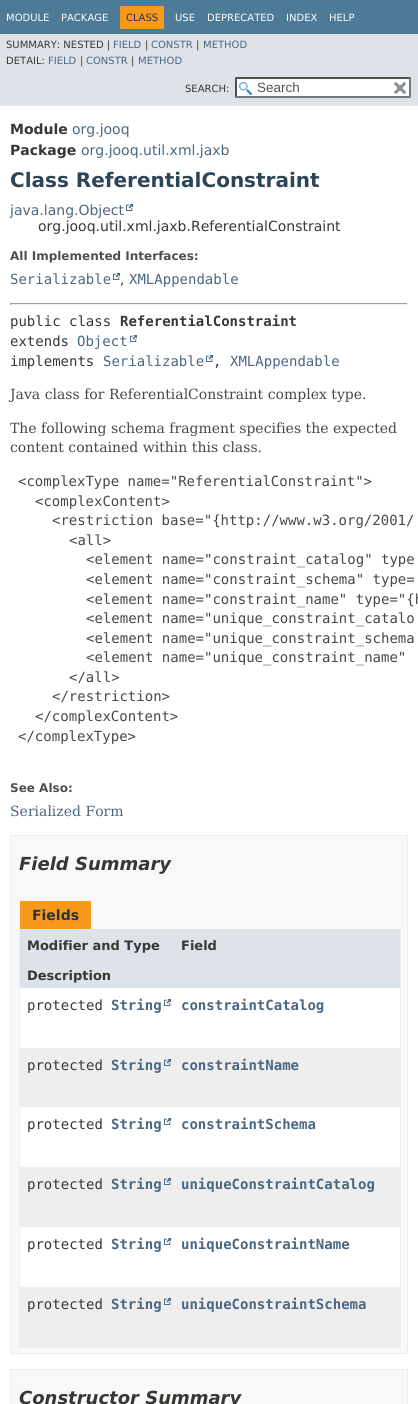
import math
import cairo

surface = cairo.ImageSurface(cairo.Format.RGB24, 418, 1404)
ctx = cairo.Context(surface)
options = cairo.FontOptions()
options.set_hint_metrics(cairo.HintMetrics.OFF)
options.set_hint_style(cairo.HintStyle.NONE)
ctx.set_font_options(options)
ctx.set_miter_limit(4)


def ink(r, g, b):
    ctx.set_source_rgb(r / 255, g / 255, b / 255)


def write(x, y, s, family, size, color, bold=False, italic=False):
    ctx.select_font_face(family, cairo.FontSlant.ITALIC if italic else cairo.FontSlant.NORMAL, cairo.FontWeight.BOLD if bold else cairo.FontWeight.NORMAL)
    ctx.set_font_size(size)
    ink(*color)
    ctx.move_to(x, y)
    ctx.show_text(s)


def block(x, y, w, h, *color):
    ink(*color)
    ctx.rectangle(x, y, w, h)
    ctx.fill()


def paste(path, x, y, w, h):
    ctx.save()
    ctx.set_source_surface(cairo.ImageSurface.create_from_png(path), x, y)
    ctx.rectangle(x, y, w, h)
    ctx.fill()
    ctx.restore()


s1 = dict(family="DejaVu Sans", size=10, color=(255, 255, 255))
s2 = dict(family="DejaVu Sans", size=10, color=(37, 52, 65))
s3 = dict(family="DejaVu Sans", size=10, color=(53, 56, 51))
s4 = dict(family="DejaVu Sans", size=10, color=(74, 103, 130))
s5 = dict(family="Liberation Sans", size=13.5, color=(84, 84, 84))
s6 = dict(family="DejaVu Sans", size=14, color=(53, 56, 51), bold=True)
s7 = dict(family="DejaVu Sans", size=14, color=(74, 103, 130))
s8 = dict(family="DejaVu Sans", size=20, color=(44, 69, 87), bold=True)
s9 = dict(family="DejaVu Sans", size=14, color=(53, 56, 51))
s10 = dict(family="DejaVu Sans", size=12, color=(78, 78, 78), bold=True)
s11 = dict(family="DejaVu Sans Mono", size=14, color=(74, 103, 130))
s12 = dict(family="DejaVu Serif", size=14, color=(53, 56, 51))
s13 = dict(family="DejaVu Sans Mono", size=14, color=(53, 56, 51))
s14 = dict(family="DejaVu Sans Mono", size=14, color=(53, 56, 51), bold=True)
s15 = dict(family="DejaVu Serif", size=14, color=(71, 71, 71))
s16 = dict(family="DejaVu Sans Mono", size=14, color=(71, 71, 71))
s17 = dict(family="DejaVu Serif", size=14, color=(74, 103, 130))
s18 = dict(family="DejaVu Sans", size=18, color=(53, 56, 51), bold=True, italic=True)
s19 = dict(family="DejaVu Sans", size=14, color=(37, 52, 65), bold=True)
s20 = dict(family="DejaVu Sans", size=13, color=(53, 56, 51), bold=True)
s21 = dict(family="DejaVu Sans Mono", size=14, color=(74, 103, 130), bold=True)

ink(255, 255, 255)
ctx.paint()
block(0, 0, 418, 34, 77, 122, 151)
write(6, 21, "MODULE", **s1)
write(61, 21, "PACKAGE", **s1)
block(120, 6, 44, 23, 248, 152, 29)
write(126, 21, "CLASS", **s2)
write(175, 21, "USE", **s1)
write(207, 21, "DEPRECATED", **s1)
write(286, 21, "INDEX", **s1)
write(329, 21, "HELP", **s1)
block(0, 34, 418, 72, 222, 227, 233)
write(6, 48, "SUMMARY: NESTED |", **s3)
write(113, 48, "FIELD", **s4)
write(145, 48, "|", **s3)
write(151, 48, "CONSTR", **s4)
write(196, 48, "|", **s3)
write(203, 48, "METHOD", **s4)
write(6, 64, "DETAIL:", **s3)
write(48, 64, "FIELD", **s4)
write(80, 64, "|", **s3)
write(86, 64, "CONSTR", **s4)
write(131, 64, "|", **s3)
write(138, 64, "METHOD", **s4)
write(185, 92, "SEARCH:", **s3)
block(235, 77, 176, 21, 255, 255, 255)
paste("pic1.png", 239, 82, 13, 13)
ink(79, 79, 79)
ctx.new_path()
ctx.move_to(235, 77)
ctx.line_to(411, 77)
ctx.line_to(409, 79)
ctx.line_to(237, 79)
ctx.close_path()
ctx.fill()
ink(118, 118, 118)
ctx.new_path()
ctx.move_to(411, 77)
ctx.line_to(411, 98)
ctx.line_to(409, 96)
ctx.line_to(409, 79)
ctx.close_path()
ctx.fill()
ctx.new_path()
ctx.move_to(411, 98)
ctx.line_to(235, 98)
ctx.line_to(237, 96)
ctx.line_to(409, 96)
ctx.close_path()
ctx.fill()
ink(79, 79, 79)
ctx.new_path()
ctx.move_to(235, 98)
ctx.line_to(235, 77)
ctx.line_to(237, 79)
ctx.line_to(237, 96)
ctx.close_path()
ctx.fill()
write(257, 92, "Search", **s5)
paste("pic2.png", 393, 81, 14, 14)
write(10, 134, "Module", **s6)
write(72, 134, "org.jooq", **s7)
write(10, 155, "Package", **s6)
write(81, 155, "org.jooq.util.xml.jaxb", **s7)
write(10, 187, "Class ReferentialConstraint", **s8)
write(10, 215, "java.lang.Object", **s7)
paste("pic3.png", 126, 204, 7, 7)
write(38, 231, "org.jooq.util.xml.jaxb.ReferentialConstraint", **s9)
write(10, 260, "All Implemented Interfaces:", **s10)
write(10, 284, "Serializable", **s11)
paste("pic3.png", 113, 273, 7, 7)
write(120, 284, ",", **s12)
write(129, 284, "XMLAppendable", **s11)
block(10, 303, 398, 1, 159, 159, 159)
block(407, 303, 1, 2, 238, 238, 238)
block(10, 304, 398, 1, 238, 238, 238)
block(10, 303, 1, 2, 159, 159, 159)
write(10, 326, "public class", **s13)
write(120, 326, "ReferentialConstraint", **s14)
write(10, 346, "extends", **s13)
write(77, 346, "Object", **s11)
paste("pic3.png", 130, 335, 7, 7)
write(10, 366, "implements", **s13)
write(103, 366, "Serializable", **s11)
paste("pic3.png", 206, 355, 7, 7)
write(213, 366, ",", **s13)
write(230, 366, "XMLAppendable", **s11)
write(10, 399, "Java class for ReferentialConstraint complex type.", **s15)
write(10, 433, "The following schema fragment specifies the expected", **s15)
write(10, 452, "content contained within this class.", **s15)
write(18, 486, "<complexType name=\"ReferentialConstraint\">", **s16)
write(35, 506, "<complexContent>", **s16)
write(52, 525, "<restriction base=\"{http://www.w3.org/2001/", **s16)
write(69, 545, "<all>", **s16)
write(86, 564, "<element name=\"constraint_catalog\" type", **s16)
write(86, 584, "<element name=\"constraint_schema\" type=", **s16)
write(86, 604, "<element name=\"constraint_name\" type=\"{h", **s16)
write(86, 623, "<element name=\"unique_constraint_catalo", **s16)
write(86, 643, "<element name=\"unique_constraint_schema", **s16)
write(86, 662, "<element name=\"unique_constraint_name\"", **s16)
write(69, 682, "</all>", **s16)
write(52, 701, "</restriction>", **s16)
write(35, 721, "</complexContent>", **s16)
write(18, 741, "</complexType>", **s16)
write(10, 792, "See Also:", **s10)
write(10, 816, "Serialized Form", **s17)
ink(248, 248, 248)
ctx.rectangle(10.5, 835.5, 397, 518)
ctx.fill_preserve()
ink(237, 237, 237)
ctx.set_line_width(1)
ctx.stroke()
write(19, 870, "Field Summary", **s18)
block(20, 901, 71, 28, 248, 152, 29)
write(32, 920, "Fields", **s19)
block(400, 929, 1, 419, 238, 238, 238)
block(19, 1347, 382, 1, 238, 238, 238)
block(19, 929, 1, 419, 238, 238, 238)
block(20, 929, 380, 30, 222, 227, 233)
write(27, 950, "Modifier and Type", **s20)
write(181, 950, "Field", **s20)
block(20, 959, 380, 29, 222, 227, 233)
write(27, 980, "Description", **s20)
block(20, 988, 380, 30, 255, 255, 255)
write(27, 1010, "protected", **s13)
write(111, 1010, "String", **s21)
paste("pic3.png", 164, 999, 7, 7)
write(181, 1010, "constraintCatalog", **s21)
block(20, 1018, 380, 30, 255, 255, 255)
block(20, 1048, 380, 30, 238, 238, 239)
write(27, 1070, "protected", **s13)
write(111, 1070, "String", **s21)
paste("pic4.png", 164, 1059, 7, 7)
write(181, 1070, "constraintName", **s21)
block(20, 1078, 380, 29, 238, 238, 239)
block(20, 1107, 380, 31, 255, 255, 255)
write(27, 1129, "protected", **s13)
write(111, 1129, "String", **s21)
paste("pic3.png", 164, 1118, 7, 7)
write(181, 1129, "constraintSchema", **s21)
block(20, 1138, 380, 29, 255, 255, 255)
block(20, 1167, 380, 31, 238, 238, 239)
write(27, 1189, "protected", **s13)
write(111, 1189, "String", **s21)
paste("pic4.png", 164, 1178, 7, 7)
write(181, 1189, "uniqueConstraintCatalog", **s21)
block(20, 1198, 380, 29, 238, 238, 239)
block(20, 1227, 380, 31, 255, 255, 255)
write(27, 1249, "protected", **s13)
write(111, 1249, "String", **s21)
paste("pic3.png", 164, 1238, 7, 7)
write(181, 1249, "uniqueConstraintName", **s21)
block(20, 1258, 380, 29, 255, 255, 255)
block(20, 1287, 380, 30, 238, 238, 239)
write(27, 1309, "protected", **s13)
write(111, 1309, "String", **s21)
paste("pic4.png", 164, 1298, 7, 7)
write(181, 1309, "uniqueConstraintSchema", **s21)
block(20, 1317, 380, 30, 238, 238, 239)
ink(248, 248, 248)
ctx.rectangle(10.5, 1369.5, 397, 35)
ctx.fill_preserve()
ink(237, 237, 237)
ctx.stroke()
write(19, 1404, "Constructor Summary", **s18)
surface.write_to_png("screenshot.png")
